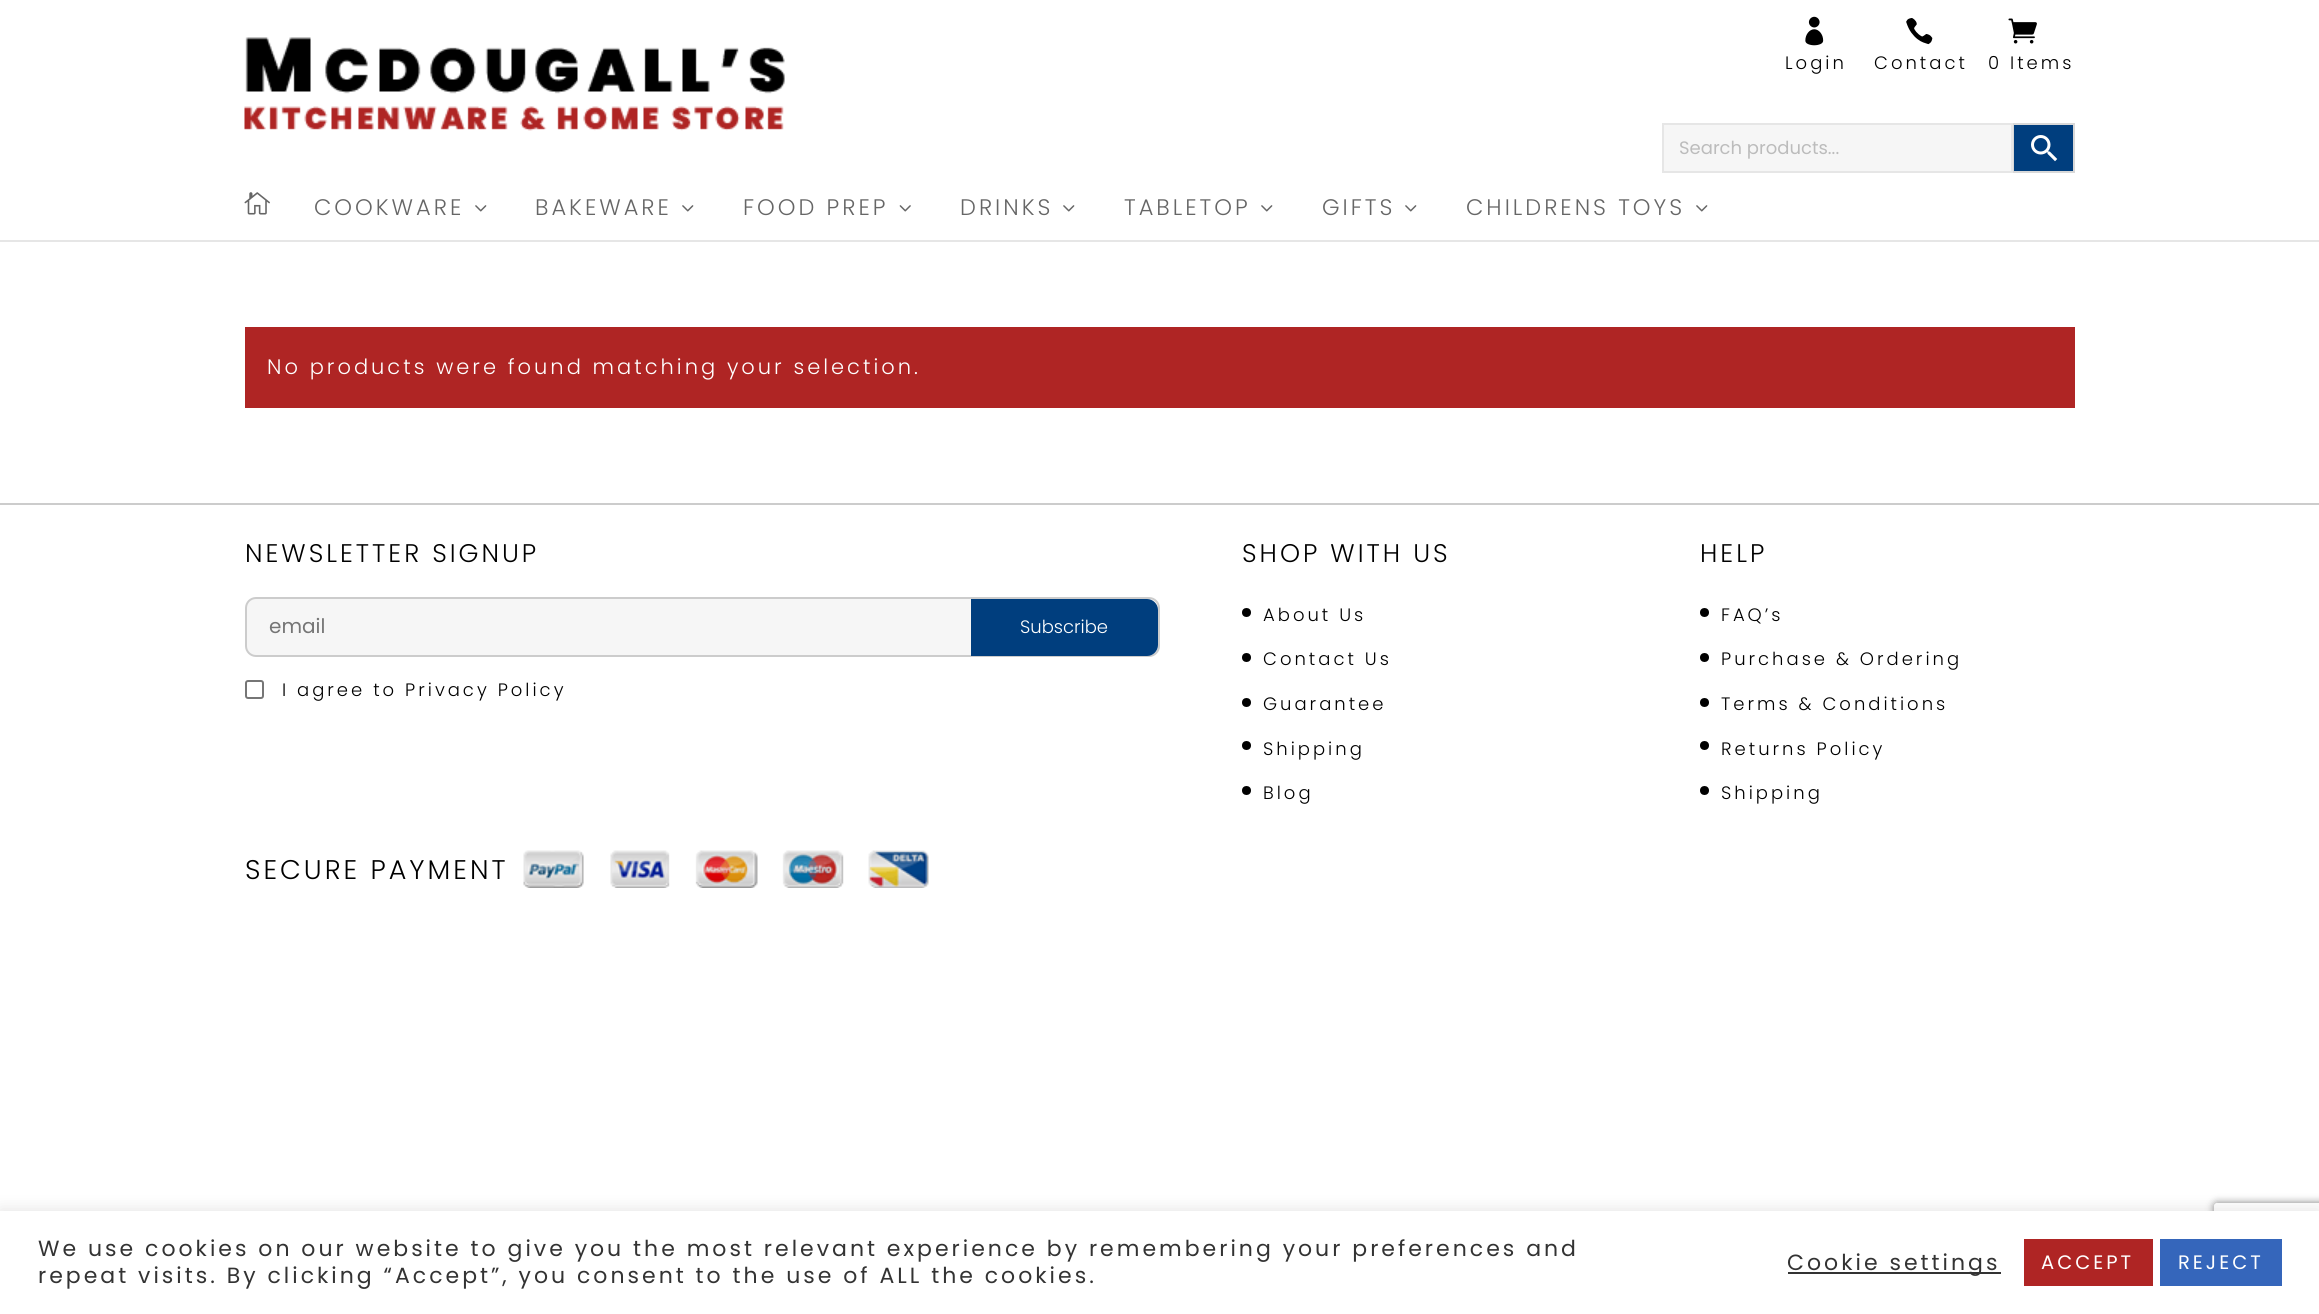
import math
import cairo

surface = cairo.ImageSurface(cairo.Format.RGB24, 2319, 1314)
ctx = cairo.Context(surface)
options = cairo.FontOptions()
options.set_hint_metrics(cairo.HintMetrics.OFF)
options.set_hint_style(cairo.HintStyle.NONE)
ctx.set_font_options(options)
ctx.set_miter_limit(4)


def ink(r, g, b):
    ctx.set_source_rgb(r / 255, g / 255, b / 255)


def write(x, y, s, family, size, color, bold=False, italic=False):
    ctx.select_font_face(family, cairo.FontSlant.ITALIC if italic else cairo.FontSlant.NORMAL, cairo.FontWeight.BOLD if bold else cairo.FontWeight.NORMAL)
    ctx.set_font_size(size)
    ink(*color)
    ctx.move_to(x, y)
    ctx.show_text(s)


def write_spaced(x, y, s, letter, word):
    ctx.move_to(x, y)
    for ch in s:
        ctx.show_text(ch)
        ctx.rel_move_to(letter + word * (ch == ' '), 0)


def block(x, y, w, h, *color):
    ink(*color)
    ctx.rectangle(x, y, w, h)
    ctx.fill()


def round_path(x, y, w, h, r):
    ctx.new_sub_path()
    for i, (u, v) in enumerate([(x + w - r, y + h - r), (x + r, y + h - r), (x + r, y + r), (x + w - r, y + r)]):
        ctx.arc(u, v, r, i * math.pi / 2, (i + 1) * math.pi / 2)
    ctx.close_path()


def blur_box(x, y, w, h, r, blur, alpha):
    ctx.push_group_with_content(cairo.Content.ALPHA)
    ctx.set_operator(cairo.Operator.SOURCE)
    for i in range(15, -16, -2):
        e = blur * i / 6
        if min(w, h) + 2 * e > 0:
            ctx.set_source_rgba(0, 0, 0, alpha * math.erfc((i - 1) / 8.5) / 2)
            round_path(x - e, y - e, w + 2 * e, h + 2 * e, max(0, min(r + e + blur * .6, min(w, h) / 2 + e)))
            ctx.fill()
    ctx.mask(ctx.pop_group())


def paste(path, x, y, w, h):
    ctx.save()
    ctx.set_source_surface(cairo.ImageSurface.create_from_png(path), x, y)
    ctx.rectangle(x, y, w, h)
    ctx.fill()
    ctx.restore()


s1 = dict(family="Poppins", size=18, color=(188, 188, 188))
s2 = dict(family="Poppins", size=20, color=(117, 117, 117))
s3 = dict(family="Poppins Light", size=18, color=(255, 255, 255))

ink(255, 255, 255)
ctx.paint()
block(0, 240, 2319, 2, 230, 230, 230)
paste("pic1.png", 244, 37, 541, 94)
paste("pic2.png", 1805, 16, 19, 30)
ctx.select_font_face("Poppins Light")
ctx.set_font_size(18)
ink(0, 0, 0)
write_spaced(1785, 69, "Login", 3, 0)
paste("pic3.png", 1906, 18, 27, 27)
write_spaced(1874, 69, "Contact", 3, 0)
paste("pic4.png", 2008, 18, 29, 26)
write_spaced(1988, 69, "0 Items", 3, 0)
ink(0, 62, 126)
ctx.rectangle(2013, 124, 61, 48)
ctx.fill_preserve()
ink(216, 216, 216)
ctx.stroke()
ink(246, 246, 246)
ctx.rectangle(1663, 124, 349, 48)
ctx.fill_preserve()
ink(230, 230, 230)
ctx.stroke()
write(1679, 154, "Search products...", **s1)
paste("pic5.png", 2031, 135, 27, 27)
paste("pic6.png", 244, 192, 26, 23)
ctx.select_font_face("Poppins Light")
ctx.set_font_size(22.5)
ink(102, 102, 102)
write_spaced(314, 215, "COOKWARE", 3, 0)
paste("pic7.png", 475, 205, 12, 7)
write_spaced(535, 215, "BAKEWARE", 3, 0)
paste("pic7.png", 682, 205, 12, 7)
write_spaced(743, 215, "FOOD PREP", 3, 0)
paste("pic8.png", 899, 205, 12, 7)
write_spaced(960, 215, "DRINKS", 3, 0)
paste("pic7.png", 1063, 205, 12, 7)
write_spaced(1124, 215, "TABLETOP", 3, 0)
paste("pic7.png", 1261, 205, 12, 7)
write_spaced(1322, 215, "GIFTS", 3, 0)
paste("pic7.png", 1405, 205, 12, 7)
write_spaced(1466, 215, "CHILDRENS TOYS", 3, 0)
paste("pic7.png", 1696, 205, 12, 7)
block(245, 327, 1830, 81, 175, 37, 36)
ctx.set_font_size(21)
ink(255, 255, 255)
write_spaced(267, 374, "No products were found matching your selection.", 3, 0)
block(0, 503, 2319, 2, 204, 204, 204)
ctx.set_font_size(25.5)
ink(0, 0, 0)
write_spaced(245, 562, "NEWSLETTER SIGNUP", 3, 0)
ink(246, 246, 246)
round_path(246, 598, 913, 58, 10)
ctx.fill_preserve()
ink(204, 204, 204)
ctx.stroke()
write(269, 633, "email", **s2)
ink(0, 62, 126)
ctx.new_path()
ctx.move_to(971, 599)
ctx.line_to(1147, 599)
ctx.curve_to(1153, 599, 1158, 604, 1158, 610)
ctx.line_to(1158, 645)
ctx.curve_to(1158, 651, 1153, 656, 1147, 656)
ctx.line_to(971, 656)
ctx.close_path()
ctx.fill()
write(1020, 633, "Subscribe", **s3)
round_path(246, 681, 17, 17, 2)
ink(118, 118, 118)
ctx.stroke()
ink(0, 0, 0)
write_spaced(282, 696, "I agree to Privacy Policy", 3, 0)
ctx.set_font_size(25.5)
write_spaced(1242, 562, "SHOP WITH US", 3, 0)
ctx.new_path()
ctx.arc(1246.5, 612.5, 4.5, 0, 2 * math.pi)
ctx.fill()
ctx.set_font_size(18)
write_spaced(1263, 621, "About Us", 3, 0)
ctx.new_path()
ctx.arc(1246.5, 657.5, 4.5, 0, 2 * math.pi)
ctx.fill()
write_spaced(1263, 665, "Contact Us", 3, 0)
ctx.new_path()
ctx.arc(1246.5, 702.5, 4.5, 0, 2 * math.pi)
ctx.fill()
write_spaced(1263, 710, "Guarantee", 3, 0)
ctx.new_path()
ctx.arc(1246.5, 745.5, 4.5, 0, 2 * math.pi)
ctx.fill()
write_spaced(1263, 755, "Shipping", 3, 0)
ctx.new_path()
ctx.arc(1246.5, 790.5, 4.5, 0, 2 * math.pi)
ctx.fill()
write_spaced(1263, 799, "Blog", 3, 0)
ctx.set_font_size(25.5)
write_spaced(1700, 562, "HELP", 3, 0)
ctx.new_path()
ctx.arc(1704.5, 612.5, 4.5, 0, 2 * math.pi)
ctx.fill()
ctx.set_font_size(18)
write_spaced(1721, 621, "FAQ’s", 3, 0)
ctx.new_path()
ctx.arc(1704.5, 657.5, 4.5, 0, 2 * math.pi)
ctx.fill()
write_spaced(1721, 665, "Purchase & Ordering", 3, 0)
ctx.new_path()
ctx.arc(1704.5, 702.5, 4.5, 0, 2 * math.pi)
ctx.fill()
write_spaced(1721, 710, "Terms & Conditions", 3, 0)
ctx.new_path()
ctx.arc(1704.5, 745.5, 4.5, 0, 2 * math.pi)
ctx.fill()
write_spaced(1721, 755, "Returns Policy", 3, 0)
ctx.new_path()
ctx.arc(1704.5, 790.5, 4.5, 0, 2 * math.pi)
ctx.fill()
write_spaced(1721, 799, "Shipping", 3, 0)
paste("pic9.png", 523, 850, 406, 38)
ctx.set_font_size(27)
write_spaced(245, 879, "SECURE PAYMENT", 3, 0)
ctx.save()
ctx.set_fill_rule(cairo.FillRule.EVEN_ODD)
ctx.new_path()
ctx.move_to(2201, 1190)
ctx.line_to(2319, 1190)
ctx.line_to(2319, 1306)
ctx.line_to(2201, 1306)
ctx.close_path()
ctx.move_to(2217, 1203)
ctx.line_to(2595, 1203)
ctx.curve_to(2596.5, 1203, 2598, 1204.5, 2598, 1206)
ctx.line_to(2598, 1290)
ctx.curve_to(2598, 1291.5, 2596.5, 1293, 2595, 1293)
ctx.line_to(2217, 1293)
ctx.curve_to(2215.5, 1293, 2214, 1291.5, 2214, 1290)
ctx.line_to(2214, 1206)
ctx.curve_to(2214, 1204.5, 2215.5, 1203, 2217, 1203)
ctx.close_path()
ctx.clip()
ink(128, 128, 128)
blur_box(2214, 1203, 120, 90, 3, 4, 1)
ctx.restore()
ink(172, 171, 171)
blur_box(0, 1209, 2319, 104, 0, 7.5, 0.3)
block(0, 1211, 2319, 103, 255, 255, 255)
ctx.select_font_face("Poppins")
ctx.set_font_size(22)
ink(51, 51, 51)
write_spaced(38, 1256, "We use cookies on our website to give you the most relevant experience by remembering your preferences and", 3, 0)
write_spaced(38, 1283, "repeat visits. By clicking “Accept”, you consent to the use of ALL the cookies.", 3, 0)
block(1788, 1272, 213, 2, 51, 51, 51)
write_spaced(1787, 1270, "Cookie settings", 3, 0)
block(2024, 1239, 129, 47, 175, 37, 36)
ctx.set_font_size(19.5)
ink(255, 255, 255)
write_spaced(2041, 1269, "ACCEPT", 3, 0)
block(2160, 1239, 122, 47, 53, 102, 187)
ink(255, 255, 255)
write_spaced(2178, 1269, "REJECT", 3, 0)
surface.write_to_png("screenshot.png")
